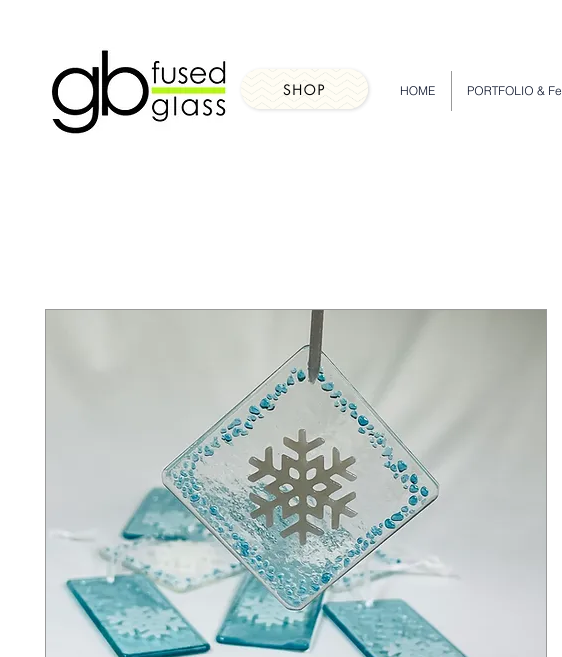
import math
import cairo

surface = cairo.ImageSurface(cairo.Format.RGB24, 562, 657)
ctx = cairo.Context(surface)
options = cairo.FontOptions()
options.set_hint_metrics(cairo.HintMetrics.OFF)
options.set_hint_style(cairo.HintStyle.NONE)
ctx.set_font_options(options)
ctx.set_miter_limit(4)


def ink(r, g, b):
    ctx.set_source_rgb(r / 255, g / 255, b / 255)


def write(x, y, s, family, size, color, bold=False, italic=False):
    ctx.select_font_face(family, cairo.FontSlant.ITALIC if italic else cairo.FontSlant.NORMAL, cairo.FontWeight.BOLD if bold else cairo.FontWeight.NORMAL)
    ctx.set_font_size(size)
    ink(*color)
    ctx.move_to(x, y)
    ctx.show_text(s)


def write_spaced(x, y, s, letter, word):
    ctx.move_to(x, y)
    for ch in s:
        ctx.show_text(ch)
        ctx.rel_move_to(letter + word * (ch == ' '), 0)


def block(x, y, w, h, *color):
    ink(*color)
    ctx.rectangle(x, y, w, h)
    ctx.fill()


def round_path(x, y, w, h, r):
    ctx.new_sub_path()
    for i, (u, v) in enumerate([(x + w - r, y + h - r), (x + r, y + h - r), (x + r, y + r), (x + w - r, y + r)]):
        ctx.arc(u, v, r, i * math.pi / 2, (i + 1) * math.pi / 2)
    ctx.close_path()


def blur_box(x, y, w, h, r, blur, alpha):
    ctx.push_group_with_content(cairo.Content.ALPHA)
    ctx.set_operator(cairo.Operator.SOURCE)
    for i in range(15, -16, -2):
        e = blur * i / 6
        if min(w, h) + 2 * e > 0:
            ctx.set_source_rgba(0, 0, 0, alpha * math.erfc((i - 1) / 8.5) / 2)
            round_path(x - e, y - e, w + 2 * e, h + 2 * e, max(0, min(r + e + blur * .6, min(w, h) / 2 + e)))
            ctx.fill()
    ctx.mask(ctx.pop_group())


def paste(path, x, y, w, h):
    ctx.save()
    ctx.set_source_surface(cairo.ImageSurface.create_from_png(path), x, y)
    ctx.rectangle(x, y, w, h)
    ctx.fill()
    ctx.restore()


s1 = dict(family="helvetica Light", size=12, color=(6, 14, 37))

ink(255, 255, 255)
ctx.paint()
paste("pic1.png", 51, 47, 177, 88)
ink(0, 0, 0)
blur_box(242, 70, 127, 40, 20, 2, 0.15)
ink(255, 253, 244)
round_path(241, 69, 127, 40, 20)
ctx.fill()
paste("pic2.png", 241, 69, 127, 40)
ctx.select_font_face("futura")
ctx.set_font_size(14)
ink(0, 0, 0)
write_spaced(283, 95, "SHOP", 1.5, 0)
write(400, 95, "HOME", **s1)
block(451, 71, 1, 40, 153, 153, 153)
write(467, 95, "PORTFOLIO & Fe", **s1)
ctx.rectangle(45.5, 309.5, 501, 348)
ink(153, 153, 153)
ctx.set_line_width(1)
ctx.stroke()
paste("pic3.png", 46, 310, 500, 347)
surface.write_to_png("screenshot.png")
